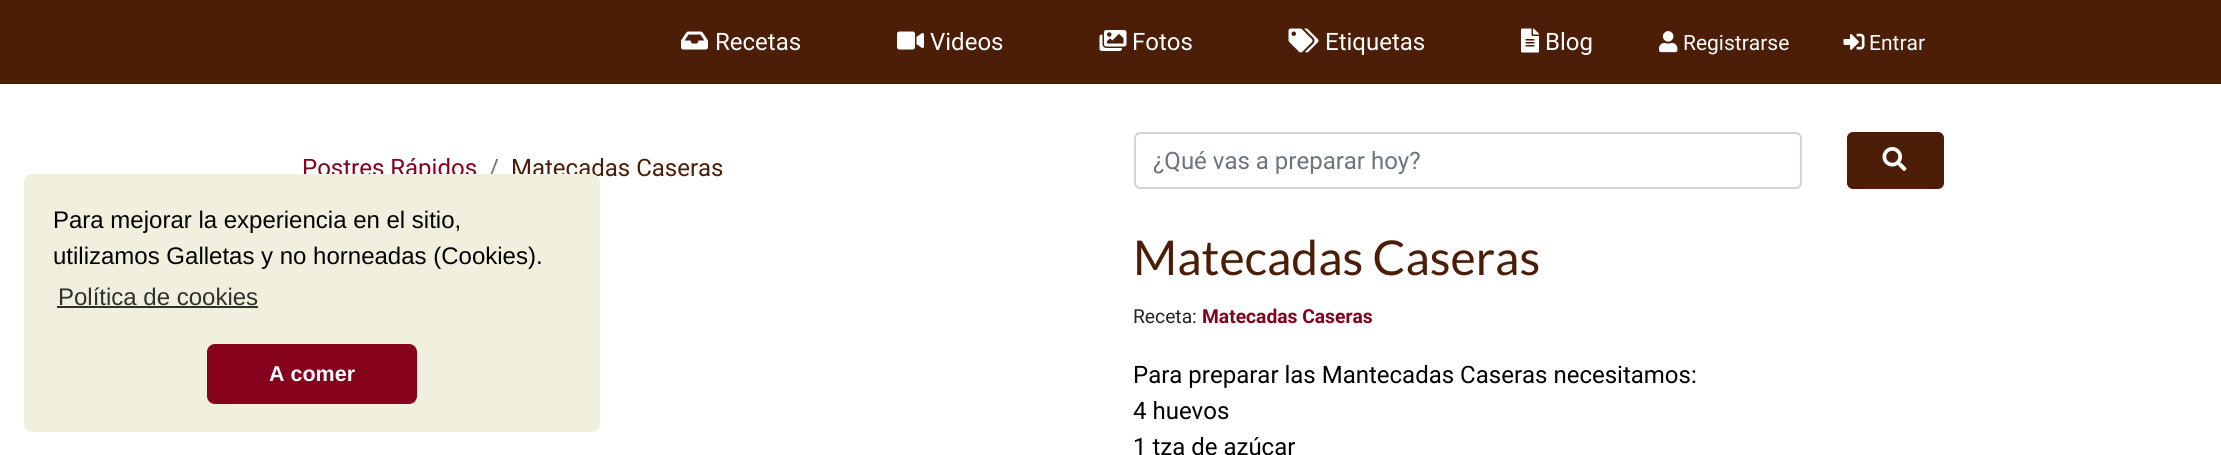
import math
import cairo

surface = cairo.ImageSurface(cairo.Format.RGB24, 2221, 455)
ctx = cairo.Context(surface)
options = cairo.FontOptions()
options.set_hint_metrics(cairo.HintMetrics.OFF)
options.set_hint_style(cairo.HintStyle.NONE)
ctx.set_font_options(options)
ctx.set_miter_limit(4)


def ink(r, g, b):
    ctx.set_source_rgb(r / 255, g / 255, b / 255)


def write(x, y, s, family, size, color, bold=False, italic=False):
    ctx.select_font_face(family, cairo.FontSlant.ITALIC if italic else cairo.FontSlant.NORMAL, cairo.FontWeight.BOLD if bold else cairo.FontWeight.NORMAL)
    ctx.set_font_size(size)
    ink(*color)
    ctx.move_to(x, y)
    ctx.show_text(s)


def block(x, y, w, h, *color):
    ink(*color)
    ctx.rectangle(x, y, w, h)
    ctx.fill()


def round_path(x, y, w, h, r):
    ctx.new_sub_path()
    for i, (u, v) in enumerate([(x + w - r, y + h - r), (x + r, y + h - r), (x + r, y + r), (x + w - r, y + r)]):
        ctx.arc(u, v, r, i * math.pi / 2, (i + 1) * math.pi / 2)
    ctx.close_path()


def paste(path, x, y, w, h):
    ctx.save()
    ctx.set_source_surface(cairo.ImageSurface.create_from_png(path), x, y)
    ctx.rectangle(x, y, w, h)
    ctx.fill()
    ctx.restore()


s1 = dict(family="Roboto", size=24, color=(255, 255, 255))
s2 = dict(family="Roboto", size=21, color=(255, 255, 255))
s3 = dict(family="Roboto", size=24, color=(134, 1, 28))
s4 = dict(family="Roboto", size=24, color=(108, 117, 125))
s5 = dict(family="Roboto", size=24, color=(76, 29, 7))
s6 = dict(family="Liberation Sans", size=24, color=(0, 0, 0))
s7 = dict(family="Liberation Sans", size=24, color=(48, 48, 44))
s8 = dict(family="Liberation Sans", size=21.5, color=(255, 255, 255), bold=True)
s9 = dict(family="Lato", size=48, color=(76, 29, 7))
s10 = dict(family="Roboto", size=19.25, color=(33, 37, 41))
s11 = dict(family="Roboto", size=19.25, color=(134, 1, 28), bold=True)
s12 = dict(family="Roboto", size=24, color=(0, 0, 0))

ink(255, 255, 255)
ctx.paint()
block(0, 0, 2221, 84, 76, 29, 7)
paste("pic1.png", 681, 31, 27, 19)
write(715, 50, "Recetas", **s1)
paste("pic2.png", 897, 31, 27, 19)
write(930, 50, "Videos", **s1)
paste("pic3.png", 1099, 30, 28, 21)
write(1132, 50, "Fotos", **s1)
paste("pic4.png", 1288, 28, 31, 25)
write(1325, 50, "Etiquetas", **s1)
paste("pic5.png", 1521, 28, 18, 25)
write(1545, 50, "Blog", **s1)
paste("pic6.png", 1659, 31, 19, 22)
write(1683, 50, "Registrarse", **s2)
paste("pic7.png", 1843, 33, 22, 17)
write(1869, 50, "Entrar", **s2)
write(302, 176, "Postres Rápidos", **s3)
write(489, 176, "/", **s4)
write(511, 176, "Matecadas Caseras", **s5)
ink(241, 240, 222)
round_path(24, 174, 576, 258, 8)
ctx.fill()
write(53, 228, "Para mejorar la experiencia en el sitio,", **s6)
write(53, 264, "utilizamos Galletas y no horneadas (Cookies).", **s6)
write(58, 305, "Política de cookies", **s7)
block(57, 306, 201, 2, 48, 48, 44)
ink(134, 1, 28)
round_path(207, 344, 210, 60, 8)
ctx.fill()
write(269, 381, "A comer", **s8)
round_path(1135, 133, 666, 55, 5)
ink(206, 212, 218)
ctx.stroke()
ctx.save()
ctx.rectangle(1154, 147, 606, 29)
ctx.clip()
write(1153, 169, "¿Qué vas a preparar hoy?", **s4)
ctx.restore()
ink(76, 29, 7)
round_path(1847, 132, 97, 57, 6)
ctx.fill()
paste("pic8.png", 1882, 147, 25, 24)
write(1133, 275, "Matecadas Caseras", **s9)
write(1133, 323, "Receta:", **s10)
write(1202, 323, "Matecadas Caseras", **s11)
write(1133, 383, "Para preparar las Mantecadas Caseras necesitamos:", **s12)
write(1133, 419, "4 huevos", **s12)
write(1133, 455, "1 tza de azúcar", **s12)
surface.write_to_png("screenshot.png")
